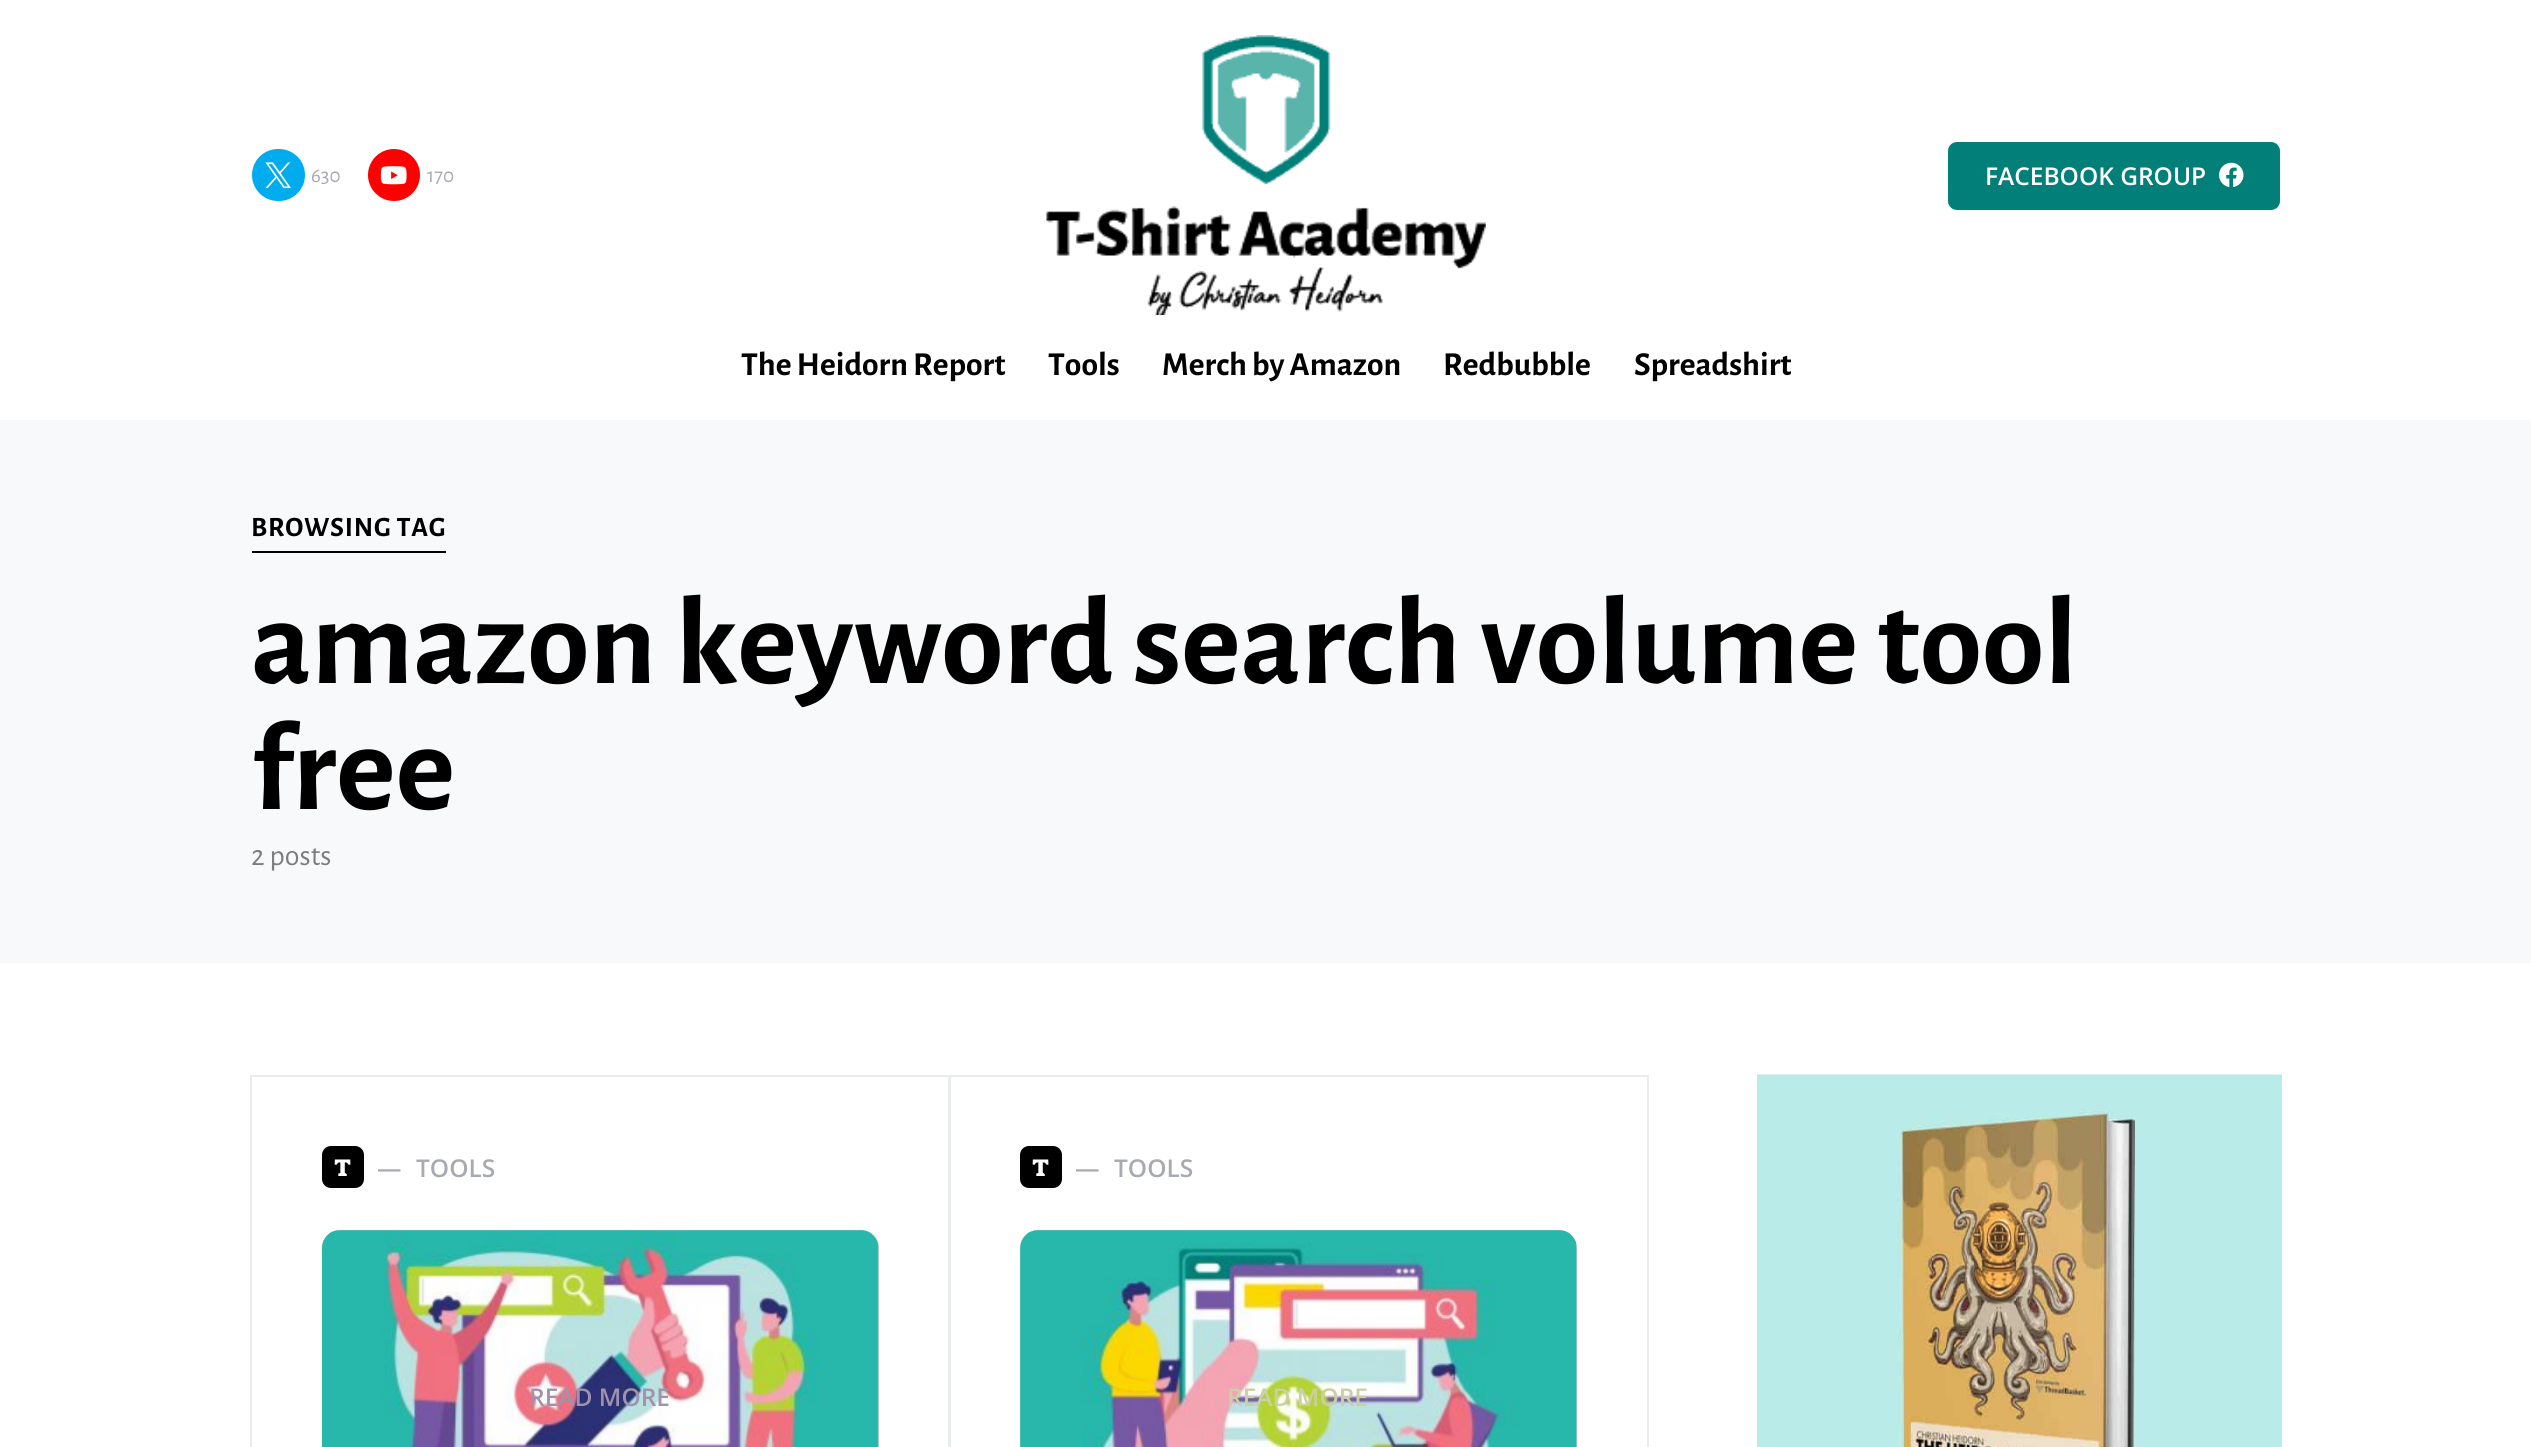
import math
import cairo

surface = cairo.ImageSurface(cairo.Format.RGB24, 2531, 1447)
ctx = cairo.Context(surface)
options = cairo.FontOptions()
options.set_hint_metrics(cairo.HintMetrics.OFF)
options.set_hint_style(cairo.HintStyle.NONE)
ctx.set_font_options(options)
ctx.set_miter_limit(4)


def ink(r, g, b):
    ctx.set_source_rgb(r / 255, g / 255, b / 255)


def write(x, y, s, family, size, color, bold=False, italic=False):
    ctx.select_font_face(family, cairo.FontSlant.ITALIC if italic else cairo.FontSlant.NORMAL, cairo.FontWeight.BOLD if bold else cairo.FontWeight.NORMAL)
    ctx.set_font_size(size)
    ink(*color)
    ctx.move_to(x, y)
    ctx.show_text(s)


def write_spaced(x, y, s, letter, word):
    ctx.move_to(x, y)
    for ch in s:
        ctx.show_text(ch)
        ctx.rel_move_to(letter + word * (ch == ' '), 0)


def block(x, y, w, h, *color):
    ink(*color)
    ctx.rectangle(x, y, w, h)
    ctx.fill()


def round_path(x, y, w, h, r):
    ctx.new_sub_path()
    for i, (u, v) in enumerate([(x + w - r, y + h - r), (x + r, y + h - r), (x + r, y + r), (x + w - r, y + r)]):
        ctx.arc(u, v, r, i * math.pi / 2, (i + 1) * math.pi / 2)
    ctx.close_path()


def paste(path, x, y, w, h):
    ctx.save()
    ctx.set_source_surface(cairo.ImageSurface.create_from_png(path), x, y)
    ctx.rectangle(x, y, w, h)
    ctx.fill()
    ctx.restore()


s1 = dict(family="Alegreya Sans", size=21, color=(168, 170, 178))
s2 = dict(family="Open Sans SemiBold", size=24.5, color=(255, 255, 255))
s3 = dict(family="Alegreya Sans", size=33.5, color=(0, 0, 0), bold=True)
s4 = dict(family="Alegreya Sans", size=126, color=(0, 0, 0), bold=True)
s5 = dict(family="Alegreya Sans", size=30, color=(124, 125, 125))
s6 = dict(family="Suez One", size=24.5, color=(255, 255, 255))
s7 = dict(family="Open Sans SemiBold", size=24.5, color=(168, 170, 178))
s8 = dict(family="Open Sans SemiBold", size=24.5, color=(159, 146, 173))
s9 = dict(family="Open Sans SemiBold", size=24.5, color=(203, 207, 165))

ink(255, 255, 255)
ctx.paint()
ink(0, 172, 237)
round_path(252, 149, 53, 52, 26)
ctx.fill()
paste("pic1.png", 265, 162, 26, 27)
write(311, 182, "630", **s1)
ink(255, 0, 0)
ctx.new_path()
ctx.arc(394, 175, 26, 0, 2 * math.pi)
ctx.fill()
paste("pic2.png", 380, 166, 27, 19)
write(427, 182, "170", **s1)
paste("pic3.png", 1046, 35, 440, 280)
ink(3, 127, 121)
round_path(1948, 142, 332, 68, 9)
ctx.fill()
write(1985, 185, "FACEBOOK GROUP", **s2)
paste("pic4.png", 2219, 162, 25, 25)
write(741, 375, "The Heidorn Report", **s3)
write(1048, 375, "Tools", **s3)
write(1162, 375, "Merch by Amazon", **s3)
write(1443, 375, "Redbubble", **s3)
write(1634, 375, "Spreadshirt", **s3)
block(0, 420, 2531, 543, 248, 249, 250)
ctx.set_font_size(28)
ink(0, 0, 0)
write_spaced(251, 536, "BROWSING TAG", 0.75, 0)
block(252, 551, 194, 2, 0, 0, 0)
write(251, 683, "amazon keyword search volume tool", **s4)
write(251, 809, "free", **s4)
write(251, 865, "2 posts", **s5)
ctx.rectangle(251, 1076, 698, 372)
ink(233, 236, 239)
ctx.stroke()
ink(0, 0, 0)
round_path(322, 1146, 42, 42, 9)
ctx.fill()
write(334, 1176, "T", **s6)
write(377, 1177, "—", **s7)
write(416, 1177, "TOOLS", **s7)
ink(204, 204, 204)
round_path(322, 1230, 557, 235, 18)
ctx.fill()
paste("pic5.png", 322, 1230, 557, 217)
write(529, 1406, "READ MORE", **s8)
ctx.rectangle(950, 1076, 698, 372)
ink(233, 236, 239)
ctx.stroke()
ink(0, 0, 0)
round_path(1020, 1146, 42, 42, 9)
ctx.fill()
write(1032, 1176, "T", **s6)
write(1075, 1177, "—", **s7)
write(1114, 1177, "TOOLS", **s7)
ink(204, 204, 204)
round_path(1020, 1230, 557, 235, 18)
ctx.fill()
paste("pic6.png", 1020, 1230, 557, 217)
write(1227, 1406, "READ MORE", **s9)
paste("pic7.png", 1757, 1074, 525, 373)
surface.write_to_png("screenshot.png")
